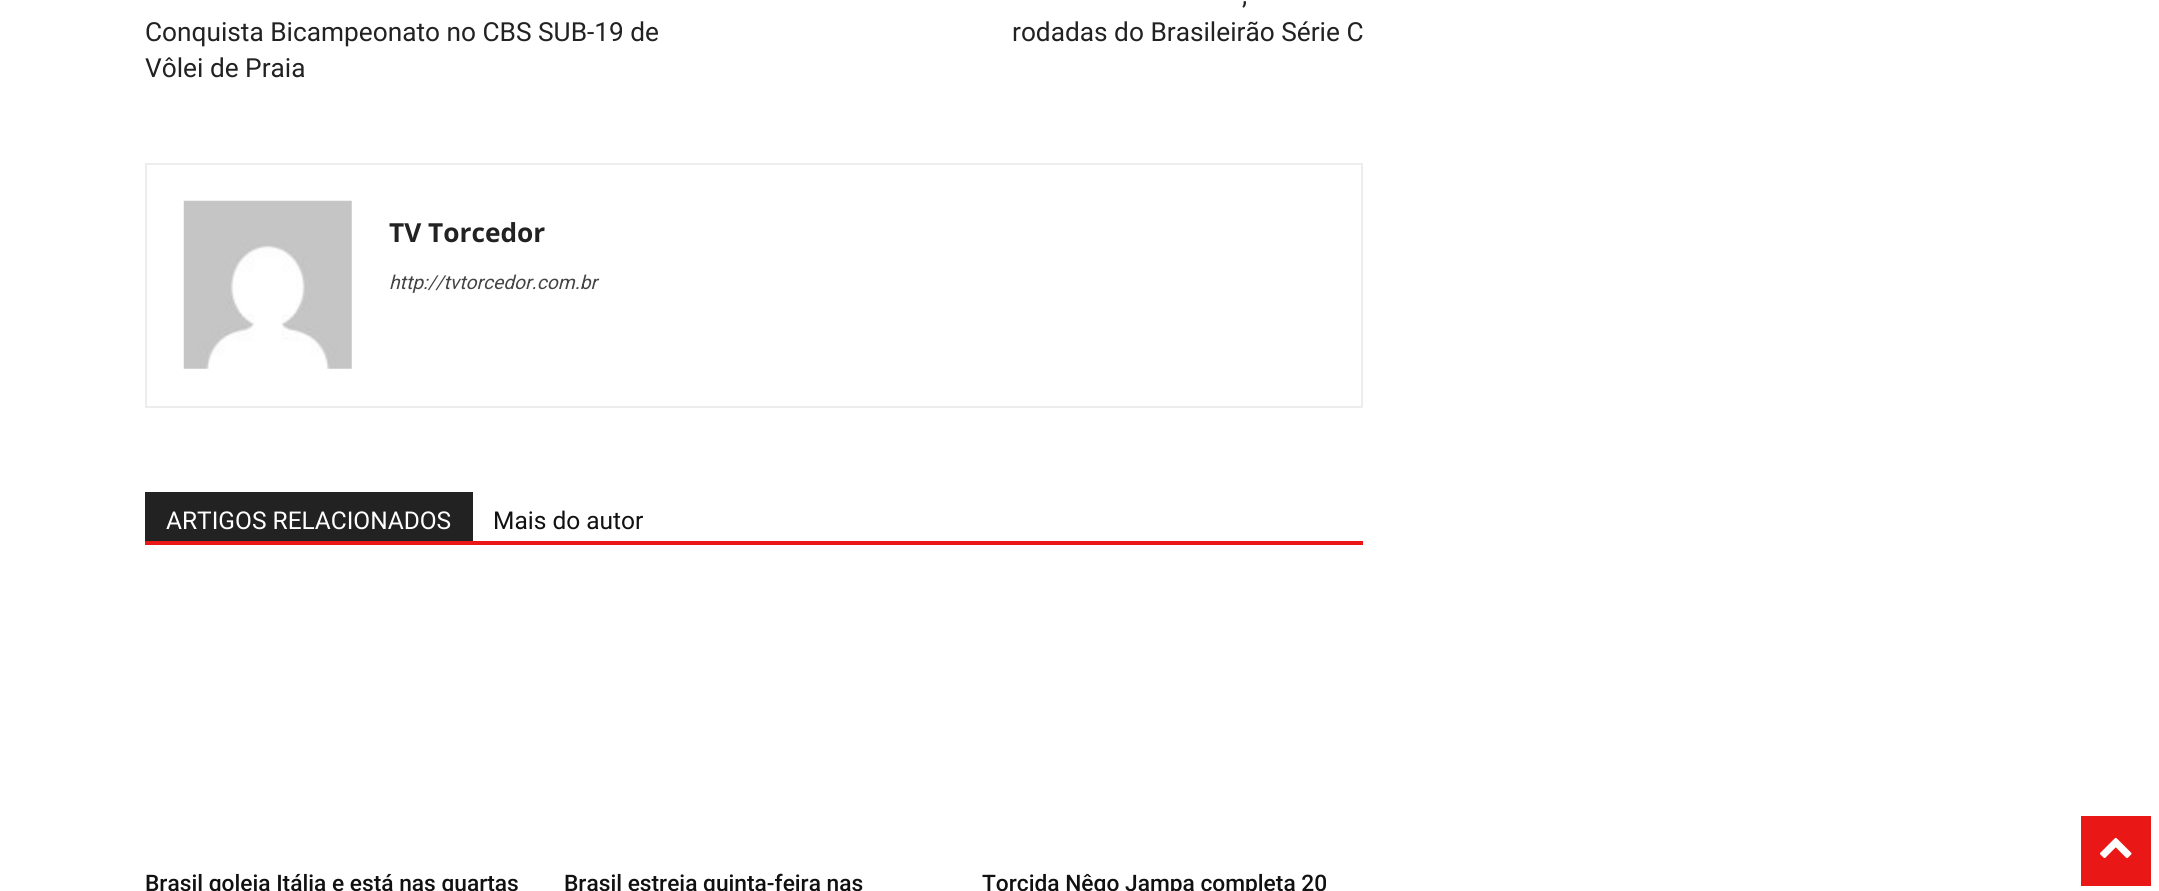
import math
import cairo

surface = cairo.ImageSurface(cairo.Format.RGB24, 2159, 891)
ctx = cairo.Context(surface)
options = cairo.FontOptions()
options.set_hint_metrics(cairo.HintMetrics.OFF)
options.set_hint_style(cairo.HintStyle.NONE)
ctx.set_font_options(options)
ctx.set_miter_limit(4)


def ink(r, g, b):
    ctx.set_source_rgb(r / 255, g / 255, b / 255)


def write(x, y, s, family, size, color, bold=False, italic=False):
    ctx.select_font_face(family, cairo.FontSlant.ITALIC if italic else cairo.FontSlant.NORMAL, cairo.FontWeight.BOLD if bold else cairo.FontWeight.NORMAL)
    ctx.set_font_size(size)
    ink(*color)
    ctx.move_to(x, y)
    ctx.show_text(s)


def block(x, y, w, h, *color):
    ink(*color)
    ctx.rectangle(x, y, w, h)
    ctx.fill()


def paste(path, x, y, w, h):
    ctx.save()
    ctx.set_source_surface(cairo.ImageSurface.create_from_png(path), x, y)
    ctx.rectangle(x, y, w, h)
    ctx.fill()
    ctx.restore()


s1 = dict(family="Roboto", size=26.25, color=(34, 34, 34))
s2 = dict(family="Open Sans", size=26.25, color=(34, 34, 34), bold=True)
s3 = dict(family="Roboto", size=19.25, color=(68, 68, 68), italic=True)
s4 = dict(family="Roboto", size=24.5, color=(255, 255, 255))
s5 = dict(family="Roboto", size=24.5, color=(17, 17, 17))
s6 = dict(family="Roboto Medium", size=22.75, color=(17, 17, 17))

ink(255, 255, 255)
ctx.paint()
write(145, 41, "Conquista Bicampeonato no CBS SUB-19 de", **s1)
write(145, 77, "Vôlei de Praia", **s1)
write(1242, 4, ",", **s1)
write(1012, 41, "rodadas do Brasileirão Série C", **s1)
ctx.rectangle(146, 164, 1216, 243)
ink(237, 237, 237)
ctx.stroke()
paste("pic1.png", 183, 200, 169, 169)
write(389, 242, "TV Torcedor", **s2)
write(389, 289, "http://tvtorcedor.com.br", **s3)
block(145, 541, 1218, 4, 234, 23, 23)
block(145, 492, 328, 49, 34, 34, 34)
write(166, 529, "ARTIGOS RELACIONADOS", **s4)
write(493, 529, "Mais do autor", **s5)
write(145, 891, "Brasil goleia Itália e está nas quartas", **s6)
write(564, 891, "Brasil estreia quinta-feira nas", **s6)
write(982, 891, "Torcida Nêgo Jampa completa 20", **s6)
block(2081, 816, 70, 70, 234, 23, 23)
paste("pic2.png", 2100, 837, 32, 21)
surface.write_to_png("screenshot.png")
